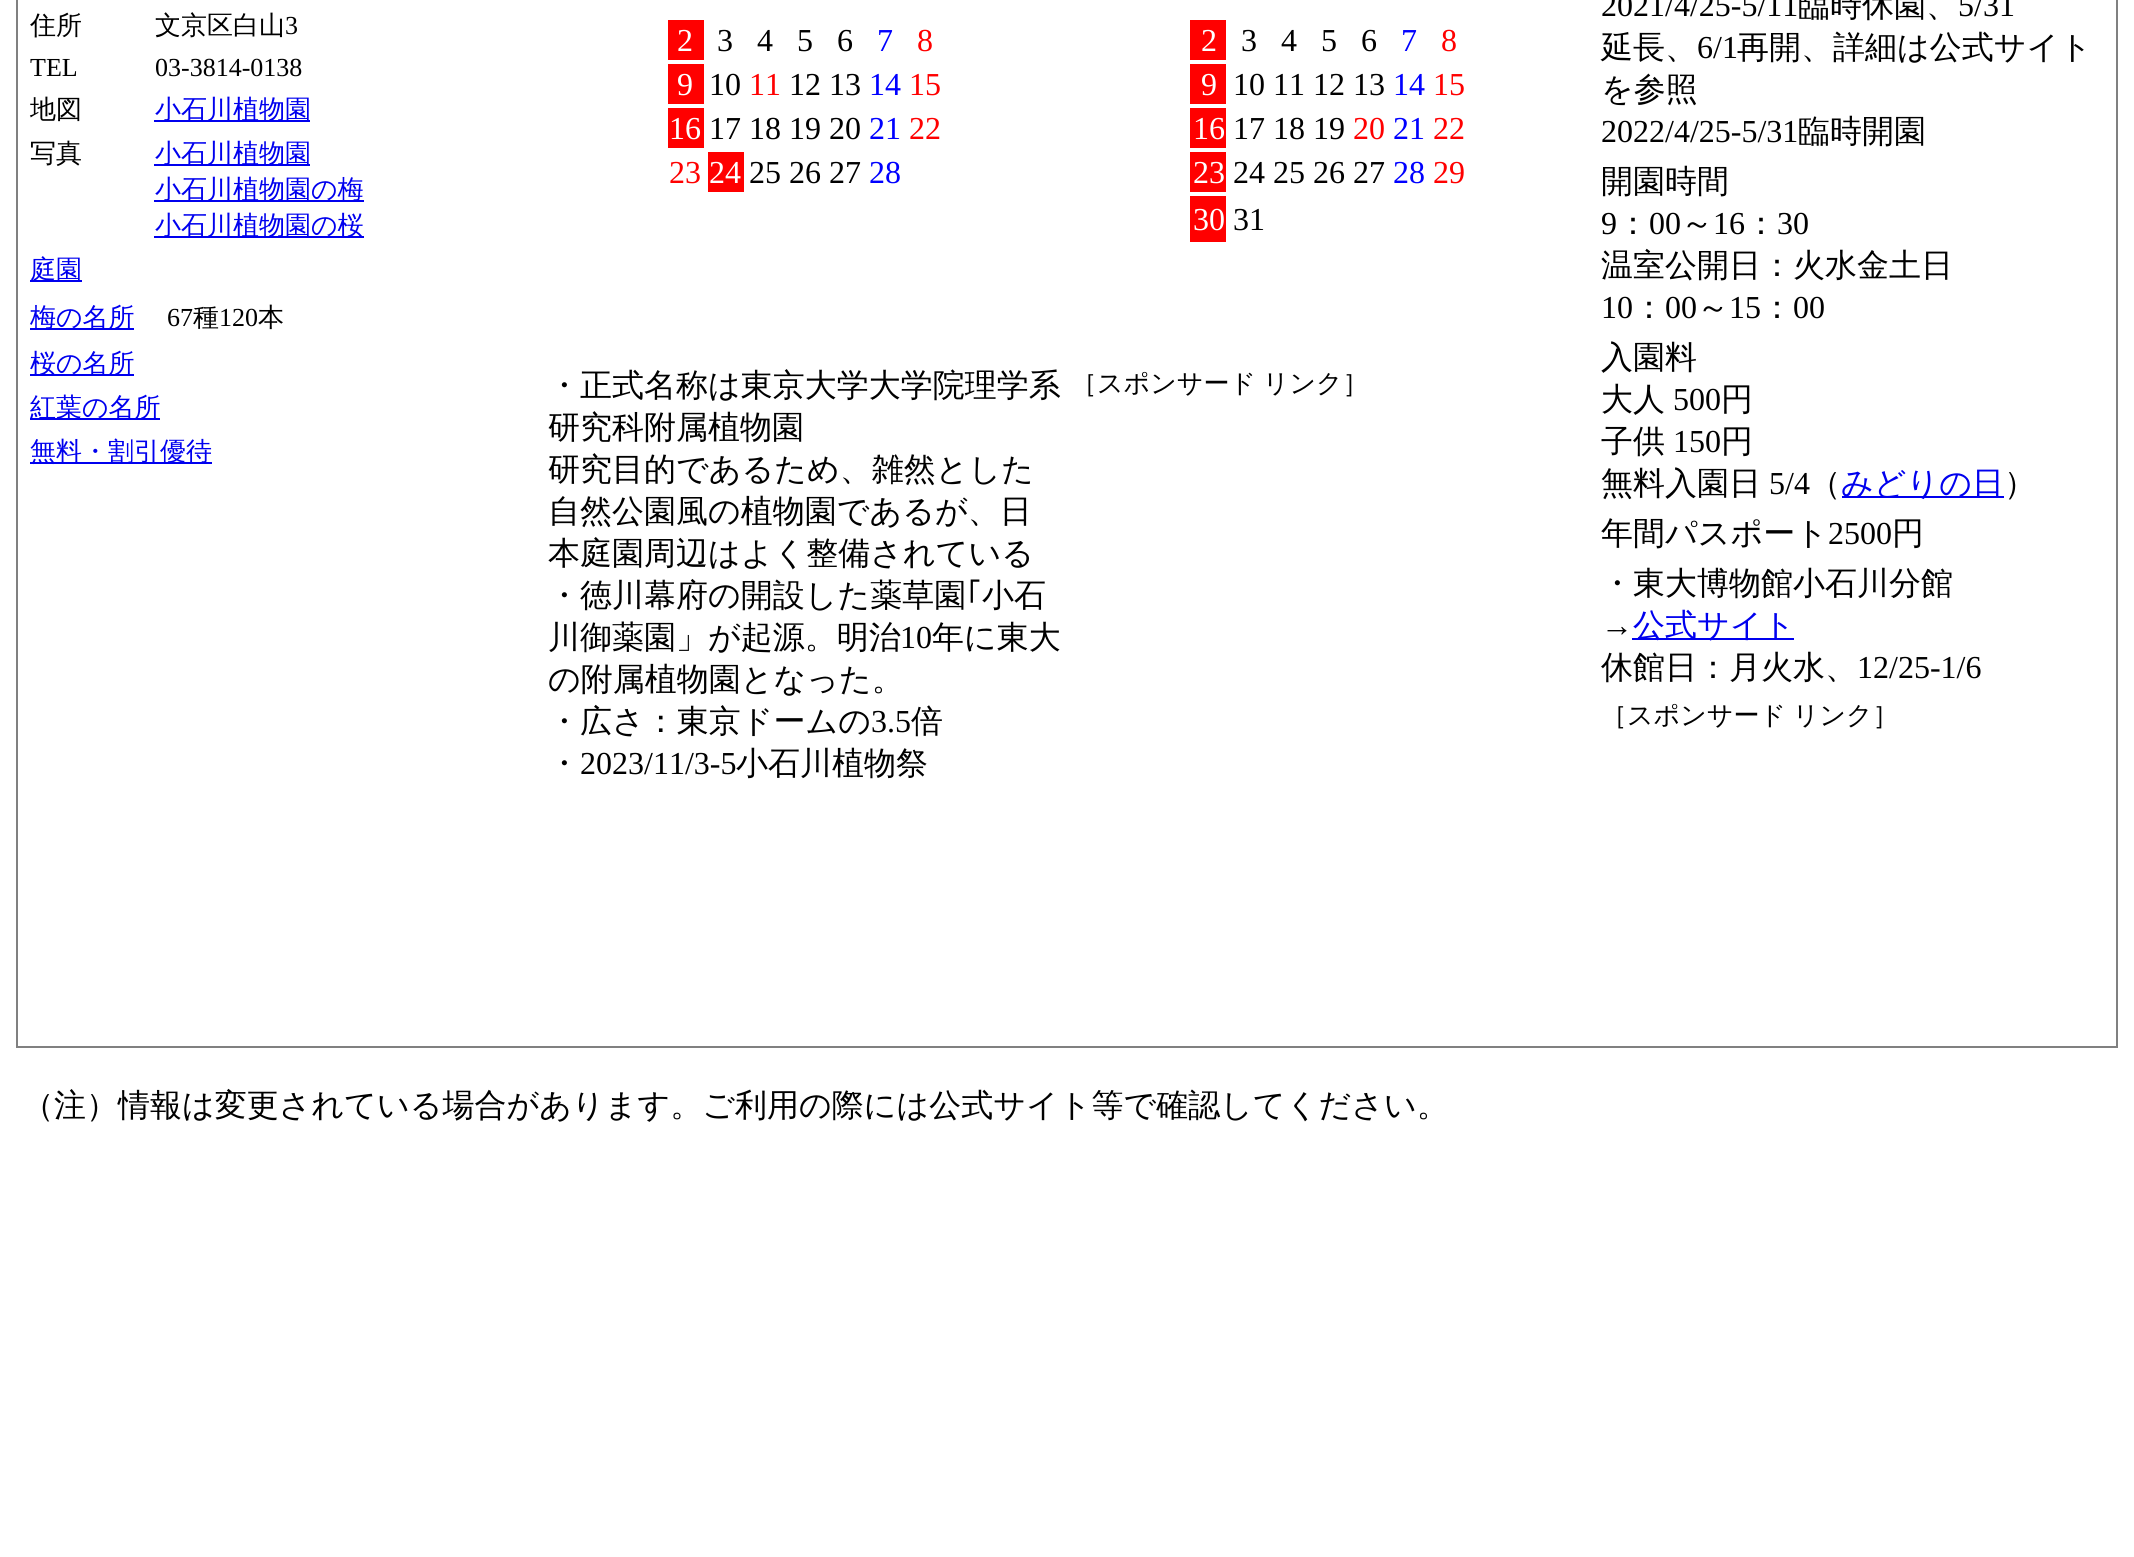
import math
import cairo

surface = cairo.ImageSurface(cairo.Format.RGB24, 2134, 1557)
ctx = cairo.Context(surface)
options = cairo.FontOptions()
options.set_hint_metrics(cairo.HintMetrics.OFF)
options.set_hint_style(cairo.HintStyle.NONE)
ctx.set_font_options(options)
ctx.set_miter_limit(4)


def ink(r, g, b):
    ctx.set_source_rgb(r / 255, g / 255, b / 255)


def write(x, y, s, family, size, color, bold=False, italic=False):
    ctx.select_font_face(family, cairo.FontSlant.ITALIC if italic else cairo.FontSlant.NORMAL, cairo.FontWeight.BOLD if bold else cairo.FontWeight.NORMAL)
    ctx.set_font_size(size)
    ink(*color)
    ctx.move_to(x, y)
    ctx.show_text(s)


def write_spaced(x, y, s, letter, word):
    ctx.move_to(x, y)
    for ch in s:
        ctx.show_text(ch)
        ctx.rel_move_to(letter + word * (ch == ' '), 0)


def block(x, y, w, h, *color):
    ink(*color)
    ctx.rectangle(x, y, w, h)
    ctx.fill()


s1 = dict(family="WenQuanYi Zen Hei Medium", size=26, color=(0, 0, 0))
s2 = dict(family="Liberation Serif", size=26, color=(0, 0, 0))
s3 = dict(family="WenQuanYi Zen Hei Medium", size=26, color=(0, 0, 238))
s4 = dict(family="Liberation Serif", size=32, color=(255, 255, 255))
s5 = dict(family="Liberation Serif", size=32, color=(0, 0, 0))
s6 = dict(family="Liberation Serif", size=32, color=(0, 0, 255))
s7 = dict(family="Liberation Serif", size=32, color=(255, 0, 0))
s8 = dict(family="WenQuanYi Zen Hei Medium", size=32, color=(0, 0, 0))
s9 = dict(family="WenQuanYi Zen Hei Medium", size=32, color=(0, 0, 238))
s10 = dict(family="IPAGothic", size=32, color=(0, 0, 0))

ink(255, 255, 255)
ctx.paint()
ctx.rectangle(17, -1, 2100, 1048)
ink(128, 128, 128)
ctx.stroke()
write(30, 34, "住所", **s1)
write(155, 34, "文京区白山", **s1)
write(285, 34, "3", **s2)
write(30, 76, "TEL", **s2)
write(155, 76, "03-3814-0138", **s2)
write(30, 118, "地図", **s1)
block(154, 120, 156, 2, 0, 0, 238)
write(155, 118, "小石川植物園", **s3)
write(30, 162, "写真", **s1)
block(154, 164, 156, 2, 0, 0, 238)
write(155, 162, "小石川植物園", **s3)
block(154, 200, 210, 2, 0, 0, 238)
write(155, 198, "小石川植物園の梅", **s3)
block(154, 236, 210, 2, 0, 0, 238)
write(155, 234, "小石川植物園の桜", **s3)
block(30, 280, 52, 2, 0, 0, 238)
write(30, 278, "庭園", **s3)
block(30, 328, 104, 2, 0, 0, 238)
write(30, 326, "梅の名所", **s3)
write(167, 326, "67", **s2)
write(193, 326, "種", **s1)
write(219, 326, "120", **s2)
write(258, 326, "本", **s1)
block(30, 374, 104, 2, 0, 0, 238)
write(30, 372, "桜の名所", **s3)
block(30, 418, 130, 2, 0, 0, 238)
write(30, 416, "紅葉の名所", **s3)
block(30, 462, 182, 2, 0, 0, 238)
write(30, 460, "無料・割引優待", **s3)
block(668, 20, 36, 40, 255, 0, 0)
write(677, 51, "2", **s4)
write(717, 51, "3", **s5)
write(757, 51, "4", **s5)
write(797, 51, "5", **s5)
write(837, 51, "6", **s5)
write(877, 51, "7", **s6)
write(917, 51, "8", **s7)
block(668, 64, 36, 40, 255, 0, 0)
write(677, 95, "9", **s4)
write(709, 95, "10", **s5)
write(749, 95, "11", **s7)
write(789, 95, "12 13", **s5)
write(869, 95, "14", **s6)
write(909, 95, "15", **s7)
block(668, 108, 36, 40, 255, 0, 0)
write(669, 139, "16", **s4)
write(709, 139, "17 18 19 20", **s5)
write(869, 139, "21", **s6)
write(909, 139, "22", **s7)
write(669, 183, "23", **s7)
block(708, 152, 36, 40, 255, 0, 0)
write(709, 183, "24", **s4)
write(749, 183, "25 26 27", **s5)
write(869, 183, "28", **s6)
block(1190, 20, 36, 40, 255, 0, 0)
write(1201, 51, "2", **s4)
write(1241, 51, "3", **s5)
write(1281, 51, "4", **s5)
write(1321, 51, "5", **s5)
write(1361, 51, "6", **s5)
write(1401, 51, "7", **s6)
write(1441, 51, "8", **s7)
block(1190, 64, 36, 40, 255, 0, 0)
write(1201, 95, "9", **s4)
write(1233, 95, "10 11 12 13", **s5)
write(1393, 95, "14", **s6)
write(1433, 95, "15", **s7)
block(1190, 108, 36, 40, 255, 0, 0)
write(1193, 139, "16", **s4)
write(1233, 139, "17 18 19", **s5)
write(1353, 139, "20", **s7)
write(1393, 139, "21", **s6)
write(1433, 139, "22", **s7)
block(1190, 152, 36, 40, 255, 0, 0)
write(1193, 183, "23", **s4)
write(1233, 183, "24 25 26 27", **s5)
write(1393, 183, "28", **s6)
write(1433, 183, "29", **s7)
block(1190, 196, 36, 46, 255, 0, 0)
write(1193, 230, "30", **s4)
write(1233, 230, "31", **s5)
write(1601, 16, "2021/4/25-5/11", **s5)
write(1798, 16, "臨時休園、", **s8)
write(1958, 16, "5/31", **s5)
write(1601, 58, "延長、", **s8)
write(1697, 58, "6/1", **s5)
write(1737, 58, "再開、詳細は公式サイト", **s8)
write(1601, 100, "を参照", **s8)
write(1601, 142, "2022/4/25-5/31", **s5)
write(1798, 142, "臨時開園", **s8)
write(1601, 192, "開園時間", **s8)
write(1601, 234, "9", **s5)
write(1617, 234, "：", **s8)
write(1649, 234, "00", **s5)
write(1681, 234, "～", **s8)
write(1713, 234, "16", **s5)
write(1745, 234, "：", **s8)
write(1777, 234, "30", **s5)
write(1601, 276, "温室公開日：火水金土日", **s8)
write(1601, 318, "10", **s5)
write(1633, 318, "：", **s8)
write(1665, 318, "00", **s5)
write(1697, 318, "～", **s8)
write(1729, 318, "15", **s5)
write(1761, 318, "：", **s8)
write(1793, 318, "00", **s5)
write(1601, 368, "入園料", **s8)
write(1601, 410, "大人", **s8)
write(1673, 410, "500", **s5)
write(1721, 410, "円", **s8)
write(1601, 452, "子供", **s8)
write(1673, 452, "150", **s5)
write(1721, 452, "円", **s8)
write(1601, 494, "無料入園日", **s8)
write(1769, 494, "5/4", **s5)
write(1809, 494, "（", **s8)
block(1842, 496, 162, 2, 0, 0, 238)
write(1841, 494, "みどりの日", **s9)
write(2004, 494, "）", **s8)
write(1601, 544, "年間パスポート", **s8)
write(1828, 544, "2500", **s5)
write(1892, 544, "円", **s8)
write(1601, 594, "・東大博物館小石川分館", **s8)
write(1601, 636, "→", **s5)
block(1632, 638, 162, 2, 0, 0, 238)
write(1633, 636, "公式サイト", **s9)
write(1601, 678, "休館日：月火水、", **s8)
write(1857, 678, "12/25-1/6", **s5)
ctx.select_font_face("WenQuanYi Zen Hei Medium")
ctx.set_font_size(26)
write_spaced(1601, 724, "［スポンサード リンク］", 0, -1)
write(548, 396, "・正式名称は東京大学大学院理学系", **s8)
write(548, 438, "研究科附属植物園", **s8)
write(548, 480, "研究目的であるため、雑然とした", **s8)
write(548, 522, "自然公園風の植物園であるが、日", **s8)
write(548, 564, "本庭園周辺はよく整備されている", **s8)
write(548, 606, "・徳川幕府の開設した薬草園", **s8)
write(966, 606, "｢", **s10)
write(982, 606, "小石", **s8)
write(548, 648, "川御薬園」が起源。明治", **s8)
write(900, 648, "10", **s5)
write(932, 648, "年に東大", **s8)
write(548, 690, "の附属植物園となった。", **s8)
write(548, 732, "・広さ：東京ドームの", **s8)
write(871, 732, "3.5", **s5)
write(911, 732, "倍", **s8)
write(548, 774, "・", **s8)
write(580, 774, "2023/11/3-5", **s5)
write(736, 774, "小石川植物祭", **s8)
ctx.set_font_size(26)
write_spaced(1071, 392, "［スポンサード リンク］", 0, -1)
write(22, 1116, "（注）情報は変更されている場合があります。ご利用の際には公式サイト等で確認してください。", **s8)
surface.write_to_png("screenshot.png")
